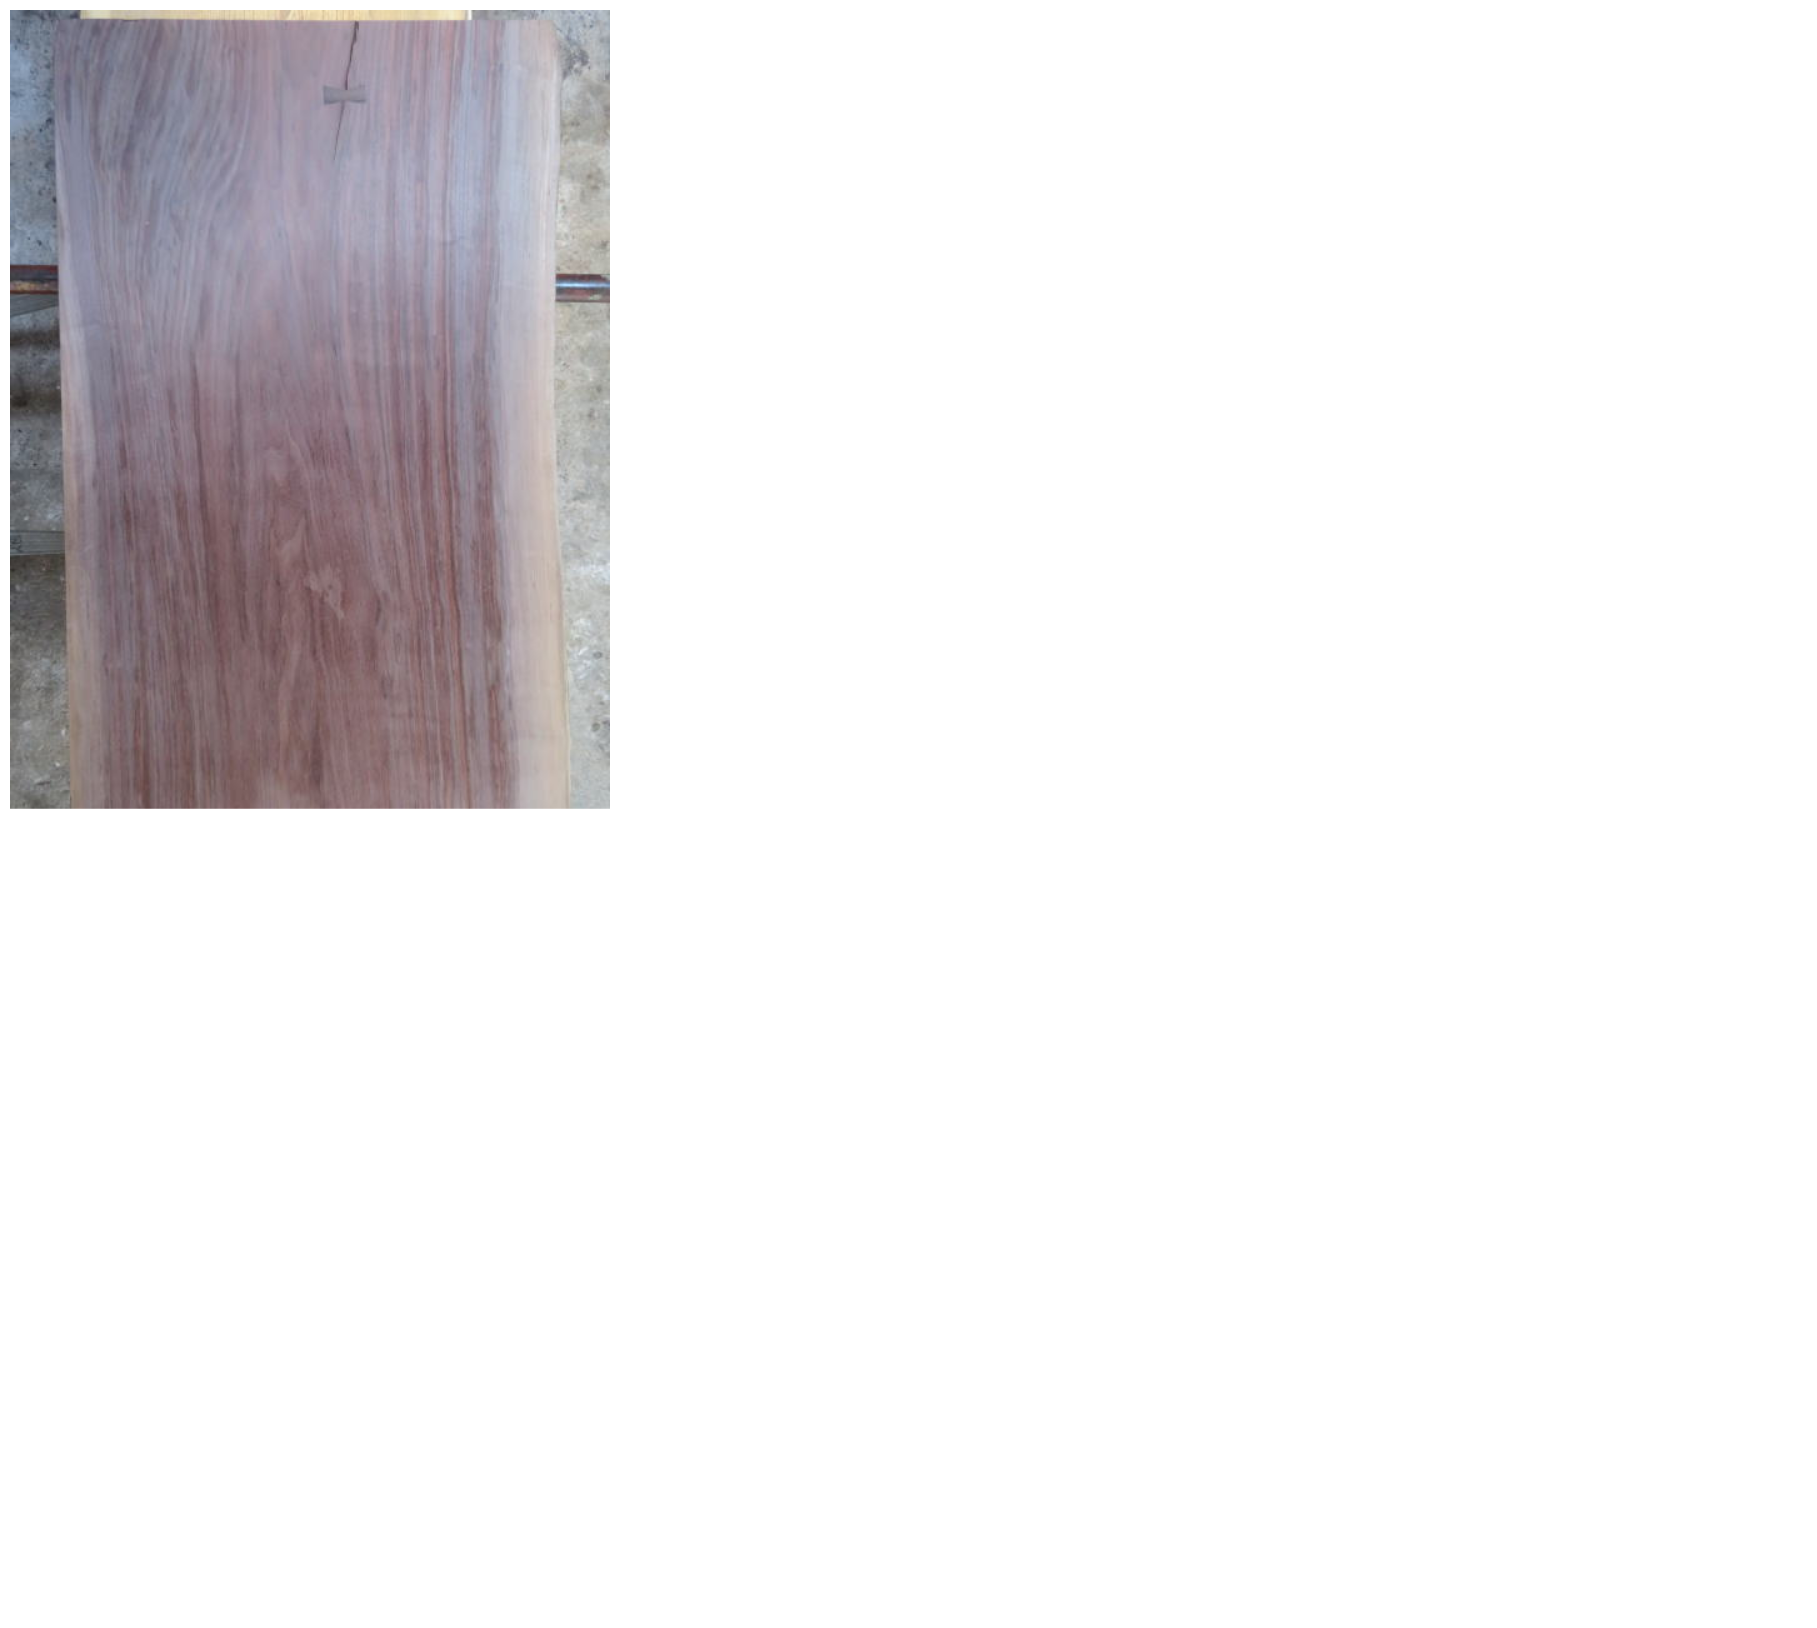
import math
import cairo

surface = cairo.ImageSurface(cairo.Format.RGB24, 1817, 1628)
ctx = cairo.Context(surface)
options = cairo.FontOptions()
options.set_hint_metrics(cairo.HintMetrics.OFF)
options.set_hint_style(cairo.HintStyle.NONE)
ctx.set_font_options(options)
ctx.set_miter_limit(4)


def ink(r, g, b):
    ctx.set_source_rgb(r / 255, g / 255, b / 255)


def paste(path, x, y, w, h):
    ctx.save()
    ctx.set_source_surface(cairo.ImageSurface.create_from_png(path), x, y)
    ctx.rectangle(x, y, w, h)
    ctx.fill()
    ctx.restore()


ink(255, 255, 255)
ctx.paint()
paste("pic1.png", 10, 10, 600, 799)
surface.write_to_png("screenshot.png")
